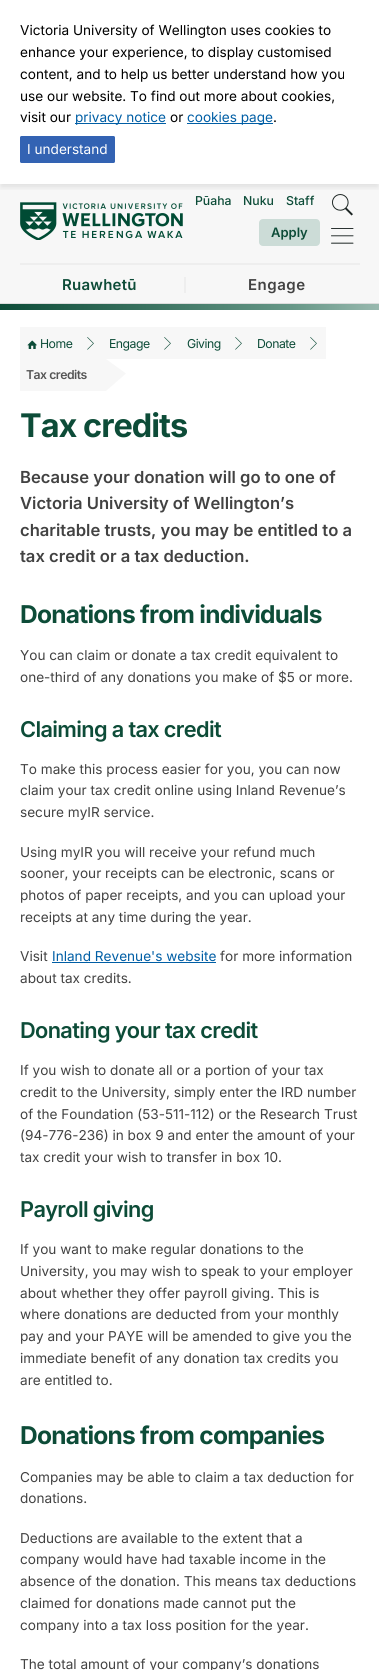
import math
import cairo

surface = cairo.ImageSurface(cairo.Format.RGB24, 379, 1670)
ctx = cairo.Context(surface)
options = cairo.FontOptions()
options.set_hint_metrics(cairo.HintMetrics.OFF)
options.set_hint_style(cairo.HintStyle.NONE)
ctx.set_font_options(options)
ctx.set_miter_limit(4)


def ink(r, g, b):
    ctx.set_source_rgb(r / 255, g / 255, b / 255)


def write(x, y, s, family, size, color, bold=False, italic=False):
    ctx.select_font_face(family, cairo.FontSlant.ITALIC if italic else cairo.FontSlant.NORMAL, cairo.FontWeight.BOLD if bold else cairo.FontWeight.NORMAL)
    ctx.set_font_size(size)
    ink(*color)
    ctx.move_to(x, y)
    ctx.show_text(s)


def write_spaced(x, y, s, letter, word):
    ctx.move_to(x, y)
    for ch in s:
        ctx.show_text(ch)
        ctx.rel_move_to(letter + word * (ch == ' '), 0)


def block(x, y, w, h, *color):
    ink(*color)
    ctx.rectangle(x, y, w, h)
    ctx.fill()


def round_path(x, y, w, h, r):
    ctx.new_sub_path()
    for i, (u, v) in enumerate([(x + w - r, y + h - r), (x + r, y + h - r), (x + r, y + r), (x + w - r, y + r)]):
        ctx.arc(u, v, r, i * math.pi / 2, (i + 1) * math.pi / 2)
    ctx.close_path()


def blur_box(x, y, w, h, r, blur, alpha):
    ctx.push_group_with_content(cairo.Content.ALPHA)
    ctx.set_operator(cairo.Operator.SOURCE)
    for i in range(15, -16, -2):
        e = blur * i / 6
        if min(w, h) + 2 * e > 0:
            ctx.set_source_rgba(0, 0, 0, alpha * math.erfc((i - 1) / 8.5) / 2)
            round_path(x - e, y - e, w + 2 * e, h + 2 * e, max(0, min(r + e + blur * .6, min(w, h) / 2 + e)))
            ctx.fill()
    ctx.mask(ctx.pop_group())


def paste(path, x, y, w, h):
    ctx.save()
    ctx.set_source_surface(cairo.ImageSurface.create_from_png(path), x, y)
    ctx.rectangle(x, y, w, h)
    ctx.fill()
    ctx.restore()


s1 = dict(family="Inter", size=13.6, color=(0, 0, 0))
s2 = dict(family="Inter", size=13.6, color=(0, 94, 165))
s3 = dict(family="Inter", size=13.6, color=(255, 255, 255))
s4 = dict(family="Inter Medium", size=12.25, color=(13, 76, 56))
s5 = dict(family="Inter SemiBold", size=13, color=(13, 76, 56))
s6 = dict(family="Inter SemiBold", size=16.6, color=(66, 66, 66))
s7 = dict(family="Inter", size=13.6, color=(66, 66, 66))

ink(255, 255, 255)
ctx.paint()
block(0, 184, 379, 119, 247, 247, 247)
paste("pic2.png", 332, 194, 21, 22)
ctx.save()
ctx.rectangle(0, 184, 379, 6)
ctx.clip()
ink(0, 0, 0)
blur_box(1, 5, 377, 182, 0, 3, 0.1)
ctx.restore()
write(20, 35, "Victoria University of Wellington uses cookies to", **s1)
write(20, 57, "enhance your experience, to display customised", **s1)
write(20, 79, "content, and to help us better understand how you", **s1)
write(20, 101, "use our website. To find out more about cookies,", **s1)
write(20, 122, "visit our", **s1)
block(75, 123, 91, 1, 0, 94, 165)
write(75, 122, "privacy notice", **s2)
write(170, 122, "or", **s1)
block(187, 123, 86, 1, 0, 94, 165)
write(187, 122, "cookies page", **s2)
write(273, 122, ".", **s1)
ink(51, 99, 179)
round_path(20, 136, 95, 27, 1.5)
ctx.fill()
write(27, 154, "I understand", **s3)
block(0, 303, 379, 1, 221, 221, 221)
paste("pic1.png", 20, 202, 163, 38)
write(195, 205, "Pūaha", **s4)
write(243, 205, "Nuku", **s4)
write(286, 205, "Staff", **s4)
ink(204, 220, 215)
round_path(259, 219, 61, 27, 4)
ctx.fill()
write(271, 237, "Apply", **s5)
paste("pic3.png", 331, 228, 23, 16)
block(20, 263, 340, 2, 238, 238, 238)
block(184, 277, 2, 16, 238, 238, 238)
ctx.set_font_size(15)
ink(13, 76, 56)
write_spaced(62, 290, "Ruawhetū", 0.25, 0)
ink(66, 66, 66)
write_spaced(248, 290, "Engage", 0.5, 0)
gradient = cairo.LinearGradient(0, 307, 379, 307)
gradient.add_color_stop_rgba(0, 0.051, 0.298, 0.22, 1)
gradient.add_color_stop_rgba(0.77, 0.4, 0.592, 0.529, 1)
gradient.add_color_stop_rgba(1, 0.6, 0.725, 0.686, 1)
ctx.set_source(gradient)
ctx.rectangle(0, 304, 379, 6)
ctx.fill()
block(20, 327, 306, 32, 247, 247, 247)
paste("pic4.png", 27, 340, 10, 9)
ctx.select_font_face("Inter")
ctx.set_font_size(12.25)
ink(13, 76, 56)
write_spaced(40, 348, "Home", -0.5, 0)
paste("pic5.png", 87, 337, 7, 13)
write_spaced(109, 348, "Engage", -0.5, 0)
paste("pic5.png", 164, 337, 7, 13)
write_spaced(187, 348, "Giving", -0.5, 0)
paste("pic5.png", 235, 337, 7, 13)
write_spaced(257, 348, "Donate", -0.5, 0)
paste("pic5.png", 310, 337, 7, 13)
block(20, 359, 86, 32, 247, 247, 247)
ctx.select_font_face("Inter SemiBold")
ink(85, 85, 85)
write_spaced(26, 379, "Tax credits", -0.5, 0)
ink(247, 247, 247)
ctx.new_path()
ctx.move_to(126, 373.5)
ctx.line_to(106, 391)
ctx.line_to(106, 359)
ctx.close_path()
ctx.fill()
ctx.select_font_face("Inter", cairo.FontSlant.NORMAL, cairo.FontWeight.BOLD)
ctx.set_font_size(32.5)
ink(13, 76, 56)
write_spaced(20, 437, "Tax credits", -1, 0)
write(20, 483, "Because your donation will go to one of", **s6)
write(20, 509, "Victoria University of Wellington’s", **s6)
write(20, 536, "charitable trusts, you may be entitled to a", **s6)
write(20, 562, "tax credit or a tax deduction.", **s6)
ctx.select_font_face("Inter", cairo.FontSlant.NORMAL, cairo.FontWeight.BOLD)
ctx.set_font_size(24.5)
ink(13, 76, 56)
write_spaced(20, 623, "Donations from individuals", -0.75, 0)
write(20, 660, "You can claim or donate a tax credit equivalent to", **s7)
write(20, 682, "one-third of any donations you make of $5 or more.", **s7)
ctx.select_font_face("Inter SemiBold")
ctx.set_font_size(21.75)
ink(13, 76, 56)
write_spaced(20, 737, "Claiming a tax credit", -0.65, 0)
write(20, 774, "To make this process easier for you, you can now", **s7)
write(20, 795, "claim your tax credit online using Inland Revenue’s", **s7)
write(20, 817, "secure myIR service.", **s7)
write(20, 857, "Using myIR you will receive your refund much", **s7)
write(20, 878, "sooner, your receipts can be electronic, scans or", **s7)
write(20, 900, "photos of paper receipts, and you can upload your", **s7)
write(20, 922, "receipts at any time during the year.", **s7)
write(20, 961, "Visit", **s7)
write(52, 961, "Inland Revenue's website", **s2)
block(52, 962, 164, 1, 0, 94, 165)
write(220, 961, "for more information", **s7)
write(20, 983, "about tax credits.", **s7)
ctx.select_font_face("Inter SemiBold")
ctx.set_font_size(21.75)
ink(13, 76, 56)
write_spaced(20, 1038, "Donating your tax credit", -0.65, 0)
write(20, 1075, "If you wish to donate all or a portion of your tax", **s7)
write(20, 1097, "credit to the University, simply enter the IRD number", **s7)
write(20, 1119, "of the Foundation (53-511-112) or the Research Trust", **s7)
write(20, 1140, "(94-776-236) in box 9 and enter the amount of your", **s7)
write(20, 1162, "tax credit your wish to transfer in box 10.", **s7)
ctx.select_font_face("Inter SemiBold")
ctx.set_font_size(21.75)
ink(13, 76, 56)
write_spaced(20, 1217, "Payroll giving", -0.65, 0)
write(20, 1254, "If you want to make regular donations to the", **s7)
write(20, 1276, "University, you may wish to speak to your employer", **s7)
write(20, 1298, "about whether they offer payroll giving. This is", **s7)
write(20, 1319, "where donations are deducted from your monthly", **s7)
write(20, 1341, "pay and your PAYE will be amended to give you the", **s7)
write(20, 1363, "immediate benefit of any donation tax credits you", **s7)
write(20, 1385, "are entitled to.", **s7)
ctx.select_font_face("Inter", cairo.FontSlant.NORMAL, cairo.FontWeight.BOLD)
ctx.set_font_size(24.5)
ink(13, 76, 56)
write_spaced(20, 1444, "Donations from companies", -0.75, 0)
write(20, 1482, "Companies may be able to claim a tax deduction for", **s7)
write(20, 1503, "donations.", **s7)
write(20, 1543, "Deductions are available to the extent that a", **s7)
write(20, 1564, "company would have had taxable income in the", **s7)
write(20, 1586, "absence of the donation. This means tax deductions", **s7)
write(20, 1608, "claimed for donations made cannot put the", **s7)
write(20, 1630, "company into a tax loss position for the year.", **s7)
write(20, 1669, "The total amount of your company’s donations", **s7)
surface.write_to_png("screenshot.png")
